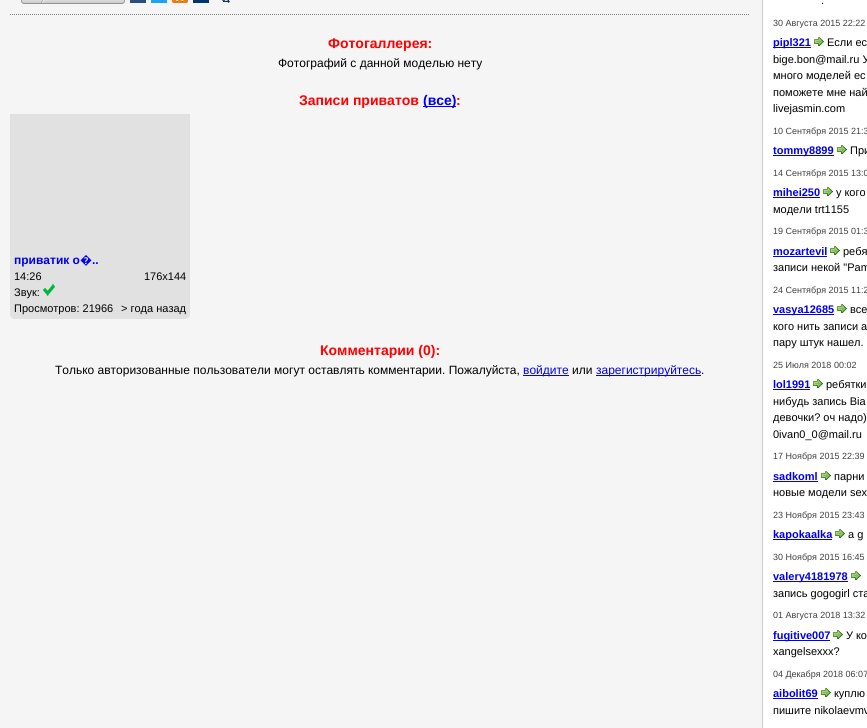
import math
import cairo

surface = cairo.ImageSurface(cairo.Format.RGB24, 867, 728)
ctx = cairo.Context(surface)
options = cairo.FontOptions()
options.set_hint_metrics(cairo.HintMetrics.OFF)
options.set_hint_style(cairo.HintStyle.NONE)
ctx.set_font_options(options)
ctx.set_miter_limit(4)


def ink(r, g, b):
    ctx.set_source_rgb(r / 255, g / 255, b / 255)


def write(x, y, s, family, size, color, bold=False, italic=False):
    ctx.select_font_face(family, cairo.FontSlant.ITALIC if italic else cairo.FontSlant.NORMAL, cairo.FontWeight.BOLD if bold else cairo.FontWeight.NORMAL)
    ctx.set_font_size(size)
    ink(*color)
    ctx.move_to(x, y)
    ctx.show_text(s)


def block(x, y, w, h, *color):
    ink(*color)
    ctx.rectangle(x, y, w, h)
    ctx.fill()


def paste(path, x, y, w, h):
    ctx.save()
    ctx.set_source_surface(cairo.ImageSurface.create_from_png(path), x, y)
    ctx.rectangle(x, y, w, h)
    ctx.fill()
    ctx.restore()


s1 = dict(family="Liberation Sans", size=14, color=(255, 0, 0), bold=True)
s2 = dict(family="Liberation Sans", size=12, color=(0, 0, 0))
s3 = dict(family="Liberation Sans", size=14, color=(0, 0, 238), bold=True)
s4 = dict(family="Liberation Sans", size=12, color=(0, 0, 238), bold=True)
s5 = dict(family="Noto Sans", size=12, color=(0, 0, 238), bold=True)
s6 = dict(family="Liberation Sans", size=11, color=(0, 0, 0))
s7 = dict(family="Liberation Sans", size=12, color=(0, 0, 238))
s8 = dict(family="Liberation Sans", size=9, color=(64, 64, 64))
s9 = dict(family="Liberation Sans", size=11, color=(0, 0, 238), bold=True)

ink(245, 245, 245)
ctx.paint()
ctx.new_path()
ctx.move_to(10, 14.5)
ctx.line_to(750, 14.5)
ink(128, 128, 128)
ctx.set_line_width(1)
ctx.set_dash([1, 1])
ctx.stroke()
paste("pic1.png", 24, 0, 98, 4)
paste("pic2.png", 21, 0, 3, 4)
paste("pic3.png", 41, 0, 4, 3)
paste("pic4.png", 122, 0, 3, 4)
block(130, 0, 16, 3, 41, 77, 125)
block(151, 0, 16, 3, 32, 161, 242)
paste("pic5.png", 172, 0, 16, 3)
block(193, 0, 16, 3, 2, 53, 107)
paste("pic6.png", 221, 0, 9, 3)
write(328, 48, "Фотогаллерея:", **s1)
write(278, 67, "Фотографий с данной моделью нету", **s2)
write(299, 105, "Записи приватов", **s1)
block(423, 106, 33, 1, 0, 0, 238)
write(423, 105, "(все)", **s3)
write(456, 105, ":", **s1)
ink(225, 225, 225)
ctx.new_path()
ctx.move_to(10, 114)
ctx.line_to(190, 114)
ctx.line_to(190, 314)
ctx.curve_to(190, 317, 188, 319, 185, 319)
ctx.line_to(15, 319)
ctx.curve_to(12, 319, 10, 317, 10, 314)
ctx.close_path()
ctx.fill()
write(14, 264, "приватик о", **s4)
write(80, 264, "�", **s5)
write(92, 264, "..", **s4)
write(14, 280, "14:26", **s6)
write(144, 280, "176x144", **s6)
write(14, 296, "Звук:", **s6)
paste("pic7.png", 43, 284, 12, 12)
write(14, 312, "Просмотров: 21966", **s6)
write(121, 312, "> года назад", **s6)
write(320, 355, "Комментарии (0):", **s1)
write(55, 374, "Только авторизованные пользователи могут оставлять комментарии. Пожалуйста,", **s2)
block(523, 375, 46, 1, 0, 0, 238)
write(523, 374, "войдите", **s7)
write(572, 374, "или", **s2)
block(596, 375, 105, 1, 0, 0, 238)
write(596, 374, "зарегистрируйтесь", **s7)
write(701, 374, ".", **s2)
ink(255, 255, 255)
ctx.rectangle(762.5, -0.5, 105, 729)
ctx.fill_preserve()
ink(208, 204, 201)
ctx.set_dash([])
ctx.stroke()
write(821, 4, ".", **s6)
write(773, 26, "30 Августа 2015 22:22", **s8)
block(773, 47, 38, 1, 0, 0, 238)
write(773, 46, "pipl321", **s9)
paste("pic8.png", 814, 37, 10, 9)
write(827, 46, "Если ес", **s6)
write(773, 63, "bige.bon@mail.ru У", **s6)
write(773, 79, "много моделей ес", **s6)
write(773, 96, "поможете мне най", **s6)
write(773, 112, "livejasmin.com", **s6)
write(773, 134, "10 Сентября 2015 21:3", **s8)
block(773, 155, 61, 1, 0, 0, 238)
write(773, 154, "tommy8899", **s9)
paste("pic8.png", 837, 145, 10, 9)
write(850, 154, "При", **s6)
write(773, 176, "14 Сентября 2015 13:0", **s8)
write(773, 196, "mihei250", **s9)
block(773, 197, 47, 1, 0, 0, 238)
paste("pic8.png", 823, 187, 10, 9)
write(836, 196, "у кого", **s6)
write(773, 213, "модели trt1155", **s6)
write(773, 234, "19 Сентября 2015 01:3", **s8)
write(773, 255, "mozartevil", **s9)
block(773, 256, 54, 1, 0, 0, 238)
paste("pic8.png", 830, 246, 10, 9)
write(843, 255, "ребя", **s6)
write(773, 271, "записи некой \"Pam", **s6)
write(773, 293, "24 Сентября 2015 11:2", **s8)
block(773, 314, 61, 1, 0, 0, 238)
write(773, 313, "vasya12685", **s9)
paste("pic8.png", 837, 304, 10, 9)
write(850, 313, "все", **s6)
write(773, 330, "кого нить записи a", **s6)
write(773, 346, "пару штук нашел.", **s6)
write(773, 368, "25 Июля 2018 00:02", **s8)
write(773, 388, "lol1991", **s9)
block(773, 389, 37, 1, 0, 0, 238)
paste("pic8.png", 813, 379, 10, 9)
write(826, 388, "ребятки", **s6)
write(773, 405, "нибудь зaпись Bia", **s6)
write(773, 421, "девочки? оч нaдо)", **s6)
write(773, 438, "0ivan0_0@mail.ru", **s6)
write(773, 459, "17 Ноября 2015 22:39", **s8)
write(773, 480, "sadkoml", **s9)
block(773, 481, 45, 1, 0, 0, 238)
paste("pic8.png", 821, 471, 10, 9)
write(834, 480, "парни", **s6)
write(773, 496, "новые модели sex", **s6)
write(773, 518, "23 Ноября 2015 23:43", **s8)
block(773, 539, 59, 1, 0, 0, 238)
write(773, 538, "kapokaalka", **s9)
paste("pic8.png", 835, 529, 10, 9)
write(848, 538, "a g", **s6)
write(773, 560, "30 Ноября 2015 16:45", **s8)
block(773, 581, 75, 1, 0, 0, 238)
write(773, 580, "valery4181978", **s9)
paste("pic8.png", 851, 571, 10, 9)
write(773, 597, "запись gogogirl ста", **s6)
write(773, 618, "01 Августа 2018 13:32", **s8)
block(773, 640, 57, 1, 0, 0, 238)
write(773, 639, "fugitive007", **s9)
paste("pic8.png", 833, 630, 10, 9)
write(846, 639, "У ко", **s6)
write(773, 655, "xangelsexxx?", **s6)
write(773, 677, "04 Декабря 2018 06:07", **s8)
write(773, 697, "aibolit69", **s9)
block(773, 698, 45, 1, 0, 0, 238)
paste("pic8.png", 821, 688, 10, 9)
write(834, 697, "куплю", **s6)
write(773, 714, "пишите nikolaevmv", **s6)
surface.write_to_png("screenshot.png")
